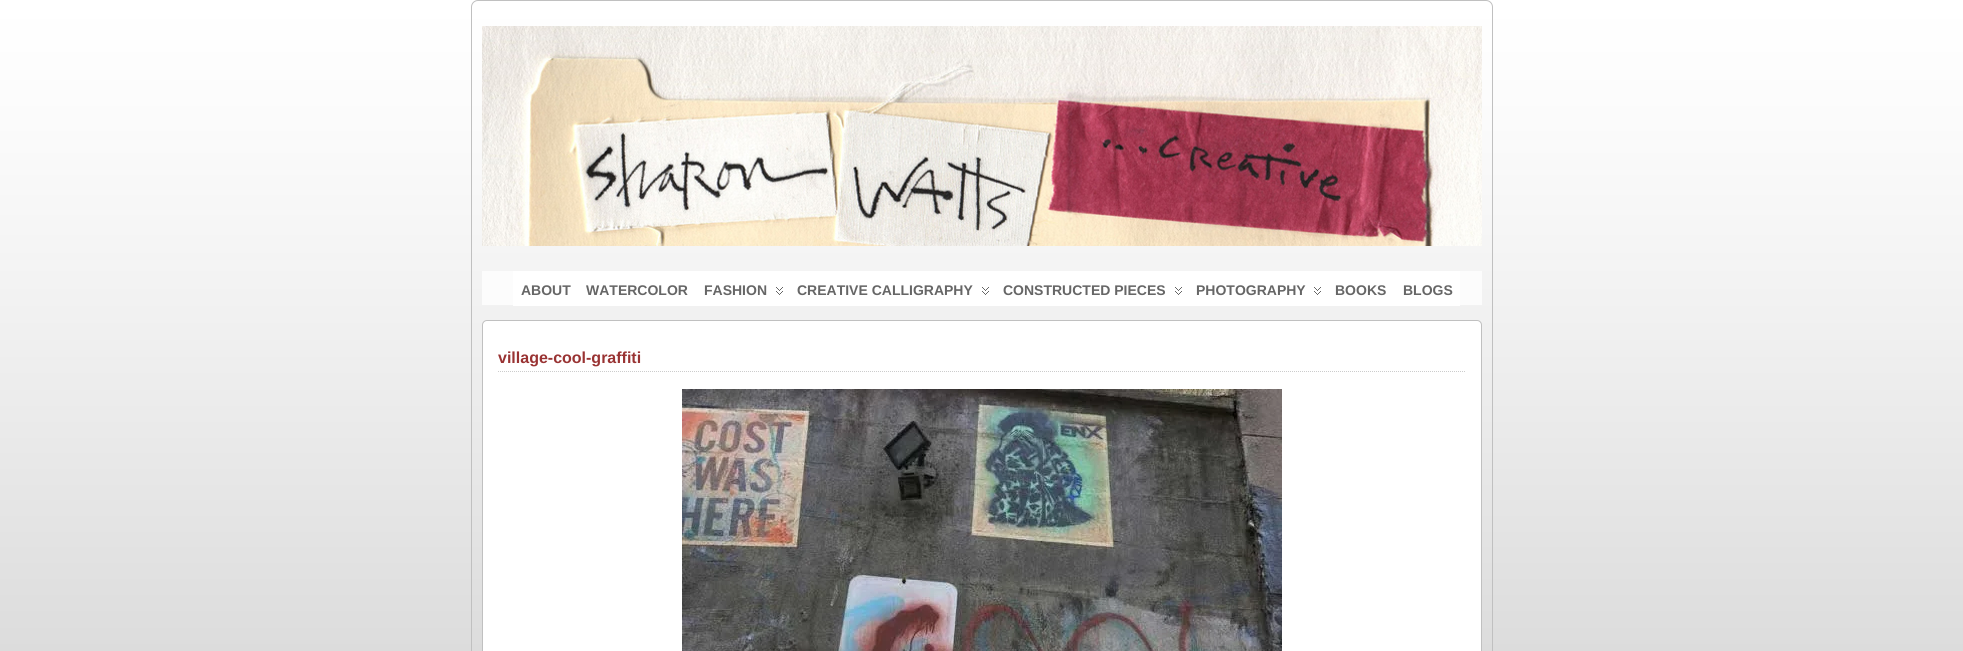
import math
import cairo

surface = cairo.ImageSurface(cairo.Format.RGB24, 1963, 651)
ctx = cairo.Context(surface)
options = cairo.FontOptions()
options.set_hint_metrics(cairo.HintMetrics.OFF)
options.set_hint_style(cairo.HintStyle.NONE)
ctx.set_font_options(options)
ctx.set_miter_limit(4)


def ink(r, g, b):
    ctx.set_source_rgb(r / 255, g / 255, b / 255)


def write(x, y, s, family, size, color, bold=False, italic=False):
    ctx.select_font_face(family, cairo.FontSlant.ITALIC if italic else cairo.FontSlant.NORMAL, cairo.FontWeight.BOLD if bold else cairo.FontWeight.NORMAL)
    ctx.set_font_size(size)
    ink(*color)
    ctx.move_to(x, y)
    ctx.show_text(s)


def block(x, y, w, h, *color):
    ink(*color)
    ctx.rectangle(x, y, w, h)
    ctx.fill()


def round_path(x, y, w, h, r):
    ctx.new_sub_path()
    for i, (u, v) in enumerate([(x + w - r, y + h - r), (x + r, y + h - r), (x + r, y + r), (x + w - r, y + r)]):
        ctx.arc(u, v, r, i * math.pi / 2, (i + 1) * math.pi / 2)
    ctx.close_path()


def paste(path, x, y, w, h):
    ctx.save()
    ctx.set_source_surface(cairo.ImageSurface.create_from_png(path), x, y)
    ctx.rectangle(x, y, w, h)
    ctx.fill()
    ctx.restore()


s1 = dict(family="Liberation Sans", size=14, color=(102, 102, 102), bold=True)
s2 = dict(family="Liberation Sans", size=16, color=(153, 51, 51), bold=True)

ink(255, 255, 255)
ctx.paint()
paste("pic1.png", 0, 0, 1963, 651)
round_path(471.5, 0.5, 1021, 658, 6.5)
ink(192, 192, 192)
ctx.set_line_width(1)
ctx.stroke()
paste("pic2.png", 482, 26, 1000, 220)
block(482, 271, 1000, 34, 252, 252, 252)
block(513, 271, 947, 35, 255, 255, 255)
write(521, 295, "ABOUT", **s1)
write(586, 295, "WATERCOLOR", **s1)
write(704, 295, "FASHION", **s1)
paste("pic3.png", 776, 287, 7, 8)
write(797, 295, "CREATIVE CALLIGRAPHY", **s1)
paste("pic3.png", 982, 287, 7, 8)
write(1003, 295, "CONSTRUCTED PIECES", **s1)
paste("pic3.png", 1175, 287, 7, 8)
write(1196, 295, "PHOTOGRAPHY", **s1)
paste("pic3.png", 1314, 287, 7, 8)
write(1335, 295, "BOOKS", **s1)
write(1403, 295, "BLOGS", **s1)
ink(255, 255, 255)
round_path(482.5, 320.5, 999, 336, 4.5)
ctx.fill_preserve()
ink(192, 192, 192)
ctx.stroke()
ctx.new_path()
ctx.move_to(498, 371.5)
ctx.line_to(1466, 371.5)
ink(204, 204, 204)
ctx.set_dash([1, 1])
ctx.stroke()
write(498, 363, "village-cool-graffiti", **s2)
paste("pic4.png", 682, 389, 600, 262)
surface.write_to_png("screenshot.png")
